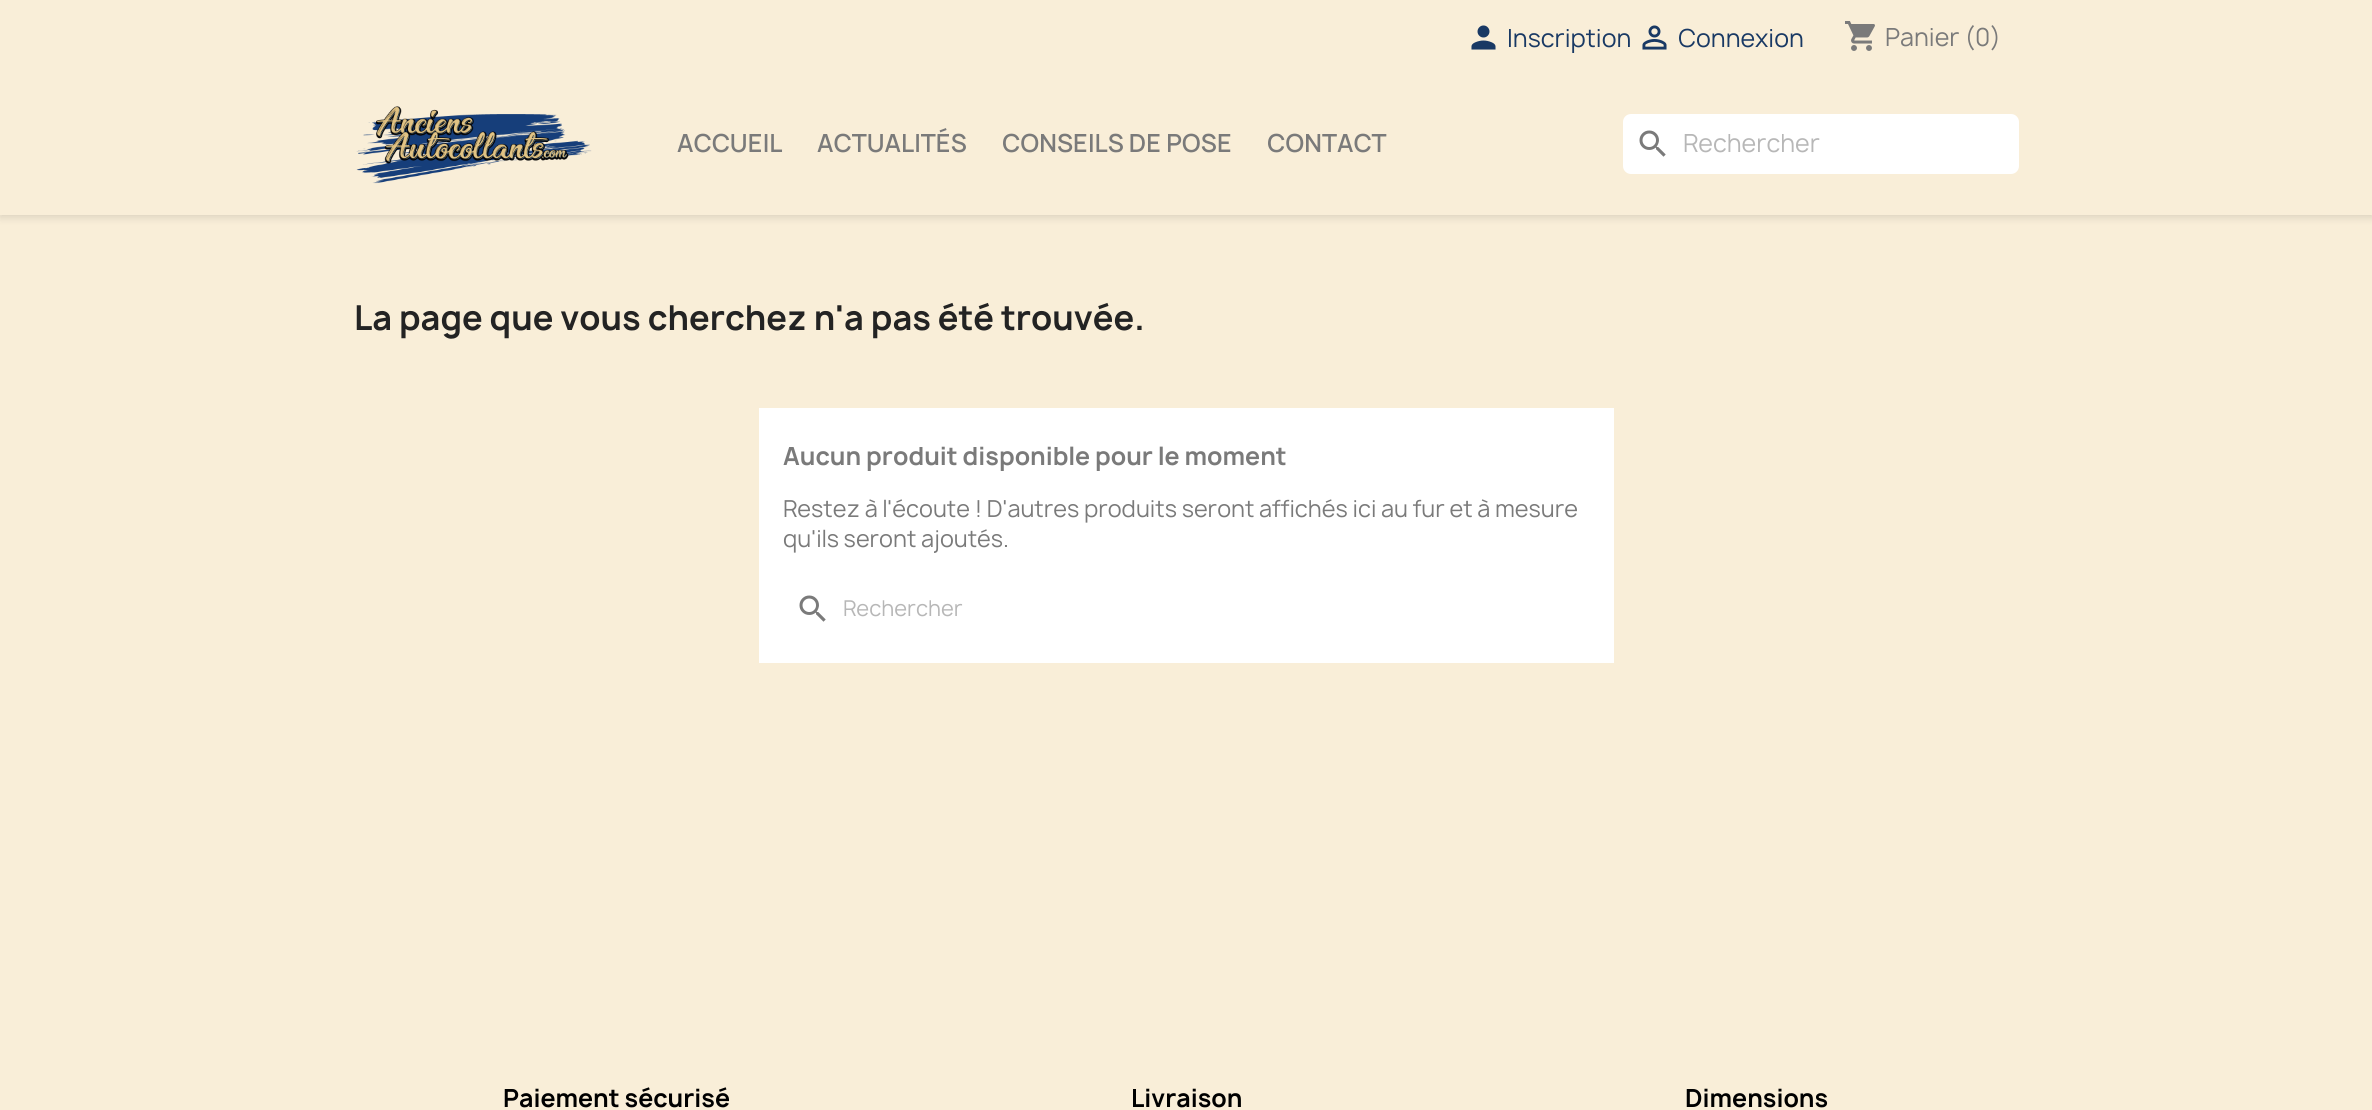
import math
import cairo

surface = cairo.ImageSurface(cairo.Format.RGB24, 2372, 1110)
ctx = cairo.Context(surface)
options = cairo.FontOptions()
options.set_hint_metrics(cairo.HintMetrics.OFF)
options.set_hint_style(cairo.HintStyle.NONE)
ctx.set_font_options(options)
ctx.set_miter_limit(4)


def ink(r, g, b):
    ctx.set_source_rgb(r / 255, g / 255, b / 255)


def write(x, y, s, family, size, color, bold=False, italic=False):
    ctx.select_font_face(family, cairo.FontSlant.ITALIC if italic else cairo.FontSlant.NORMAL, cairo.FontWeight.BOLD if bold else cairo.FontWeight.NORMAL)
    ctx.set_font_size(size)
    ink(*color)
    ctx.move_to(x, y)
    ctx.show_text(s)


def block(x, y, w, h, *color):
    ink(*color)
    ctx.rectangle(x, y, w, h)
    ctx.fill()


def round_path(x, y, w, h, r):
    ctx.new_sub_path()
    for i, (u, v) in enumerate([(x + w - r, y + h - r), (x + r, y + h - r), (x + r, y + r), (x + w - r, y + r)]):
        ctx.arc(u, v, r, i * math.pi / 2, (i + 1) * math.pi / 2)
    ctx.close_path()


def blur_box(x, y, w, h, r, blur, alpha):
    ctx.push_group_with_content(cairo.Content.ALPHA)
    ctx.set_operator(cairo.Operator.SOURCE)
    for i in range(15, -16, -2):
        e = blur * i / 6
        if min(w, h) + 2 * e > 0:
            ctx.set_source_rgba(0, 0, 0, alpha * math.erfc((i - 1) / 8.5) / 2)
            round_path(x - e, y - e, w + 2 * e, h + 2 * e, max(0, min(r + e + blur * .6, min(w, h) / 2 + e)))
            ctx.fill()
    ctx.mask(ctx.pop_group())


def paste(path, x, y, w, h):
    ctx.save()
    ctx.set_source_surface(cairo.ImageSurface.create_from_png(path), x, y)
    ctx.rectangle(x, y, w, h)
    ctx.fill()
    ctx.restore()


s1 = dict(family="Manrope", size=24, color=(25, 57, 100))
s2 = dict(family="Manrope", size=24, color=(122, 122, 122))
s3 = dict(family="Manrope SemiBold", size=24, color=(122, 122, 122))
s4 = dict(family="Manrope", size=24, color=(183, 183, 183))
s5 = dict(family="Manrope", size=33, color=(35, 35, 35), bold=True)
s6 = dict(family="Manrope", size=24, color=(122, 122, 122), bold=True)
s7 = dict(family="Manrope", size=22.5, color=(122, 122, 122))
s8 = dict(family="Manrope", size=21, color=(183, 183, 183))
s9 = dict(family="Manrope", size=24, color=(0, 0, 0), bold=True)

ink(249, 238, 216)
ctx.paint()
ink(0, 0, 0)
blur_box(0, 3, 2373, 215, 0, 4, 0.11)
block(0, 0, 2372, 215, 249, 238, 216)
paste("pic1.png", 1471, 25, 25, 25)
write(1507, 47, "Inscription", **s1)
paste("pic2.png", 1642, 25, 25, 25)
write(1678, 47, "Connexion", **s1)
paste("pic3.png", 1845, 21, 30, 30)
write(1885, 46, "Panier (0)", **s2)
paste("pic4.png", 356, 106, 236, 78)
write(677, 152, "ACCUEIL", **s3)
write(817, 152, "ACTUALITÉS", **s3)
write(1002, 152, "CONSEILS DE POSE", **s3)
write(1267, 152, "CONTACT", **s3)
ink(255, 255, 255)
round_path(1623, 114, 396, 60, 8)
ctx.fill()
paste("pic5.png", 1639, 130, 27, 27)
write(1683, 152, "Rechercher", **s4)
write(354, 330, "La page que vous cherchez n'a pas été trouvée.", **s5)
block(759, 408, 855, 255, 255, 255, 255)
write(783, 465, "Aucun produit disponible pour le moment", **s6)
write(783, 517, "Restez à l'écoute ! D'autres produits seront affichés ici au fur et à mesure", **s7)
write(783, 547, "qu'ils seront ajoutés.", **s7)
paste("pic5.png", 799, 595, 27, 27)
write(843, 616, "Rechercher", **s8)
write(503, 1107, "Paiement sécurisé", **s9)
write(1131, 1107, "Livraison", **s9)
write(1685, 1107, "Dimensions", **s9)
surface.write_to_png("screenshot.png")
